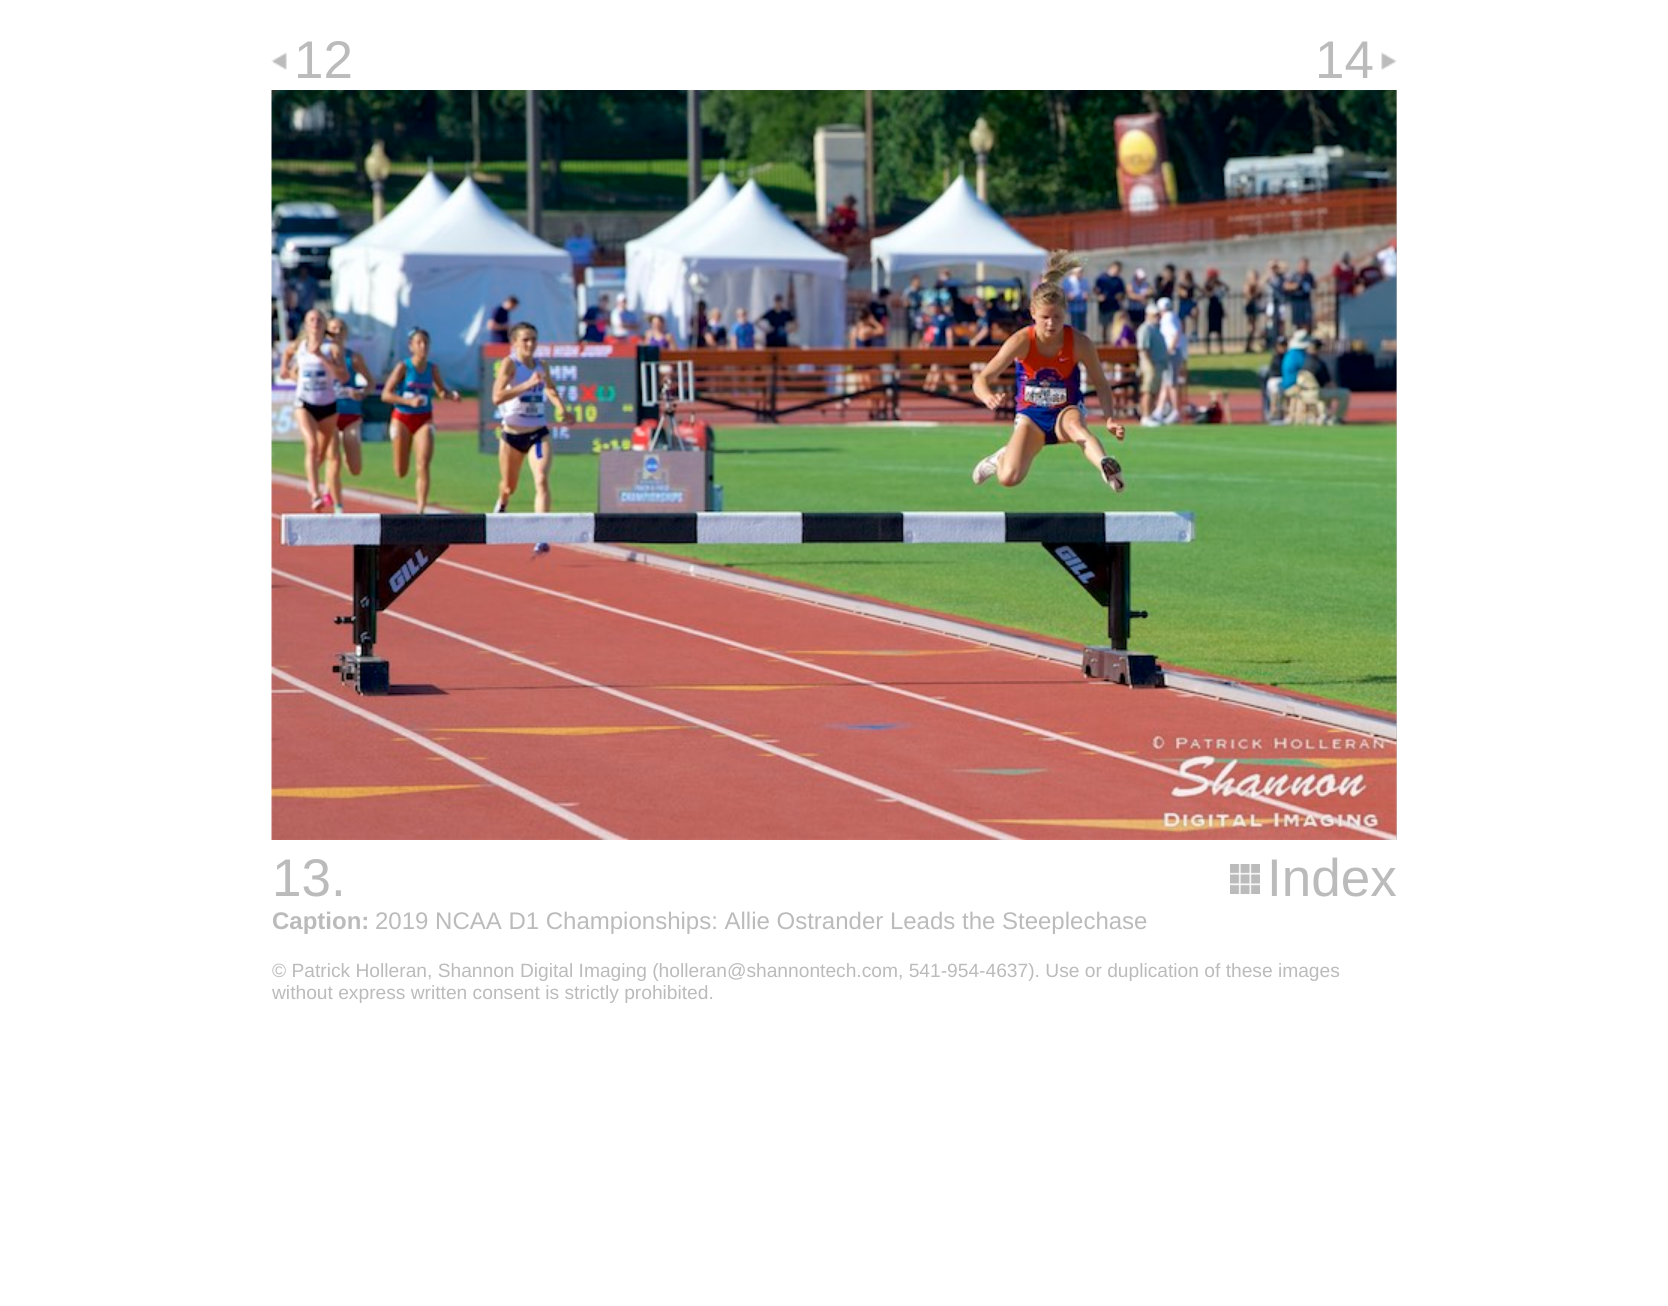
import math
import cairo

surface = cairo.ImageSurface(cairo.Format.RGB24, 1668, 1306)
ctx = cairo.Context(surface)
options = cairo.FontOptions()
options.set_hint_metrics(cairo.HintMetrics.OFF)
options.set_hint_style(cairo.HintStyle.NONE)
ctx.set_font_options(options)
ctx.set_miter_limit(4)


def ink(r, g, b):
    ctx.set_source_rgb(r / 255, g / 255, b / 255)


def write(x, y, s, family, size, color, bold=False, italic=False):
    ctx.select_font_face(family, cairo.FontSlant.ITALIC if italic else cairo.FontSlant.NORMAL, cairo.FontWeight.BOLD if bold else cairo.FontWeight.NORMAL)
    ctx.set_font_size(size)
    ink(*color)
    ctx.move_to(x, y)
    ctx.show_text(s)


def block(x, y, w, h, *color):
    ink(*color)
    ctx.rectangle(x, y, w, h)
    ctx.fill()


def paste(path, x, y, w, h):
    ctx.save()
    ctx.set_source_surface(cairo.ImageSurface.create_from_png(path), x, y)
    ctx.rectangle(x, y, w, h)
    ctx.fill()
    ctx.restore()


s1 = dict(family="Liberation Sans", size=53, color=(187, 187, 187))
s2 = dict(family="Liberation Sans", size=24, color=(187, 187, 187), bold=True)
s3 = dict(family="Liberation Sans", size=24, color=(187, 187, 187))
s4 = dict(family="Liberation Sans", size=19.2, color=(187, 187, 187))

ink(255, 255, 255)
ctx.paint()
paste("pic1.png", 271, 52, 16, 18)
write(294, 78, "12", **s1)
write(1315, 78, "14", **s1)
paste("pic2.png", 1381, 52, 16, 18)
block(1396, 90, 1, 750, 187, 187, 187)
paste("pic3.png", 271, 90, 1126, 750)
write(272, 896, "13.", **s1)
paste("pic4.png", 1230, 864, 30, 30)
write(1267, 896, "Index", **s1)
write(272, 929, "Caption:", **s2)
write(375, 929, "2019 NCAA D1 Championships: Allie Ostrander Leads the Steeplechase", **s3)
write(272, 977, "© Patrick Holleran, Shannon Digital Imaging (holleran@shannontech.com, 541-954-4637). Use or duplication of these images", **s4)
write(272, 999, "without express written consent is strictly prohibited.", **s4)
surface.write_to_png("screenshot.png")
